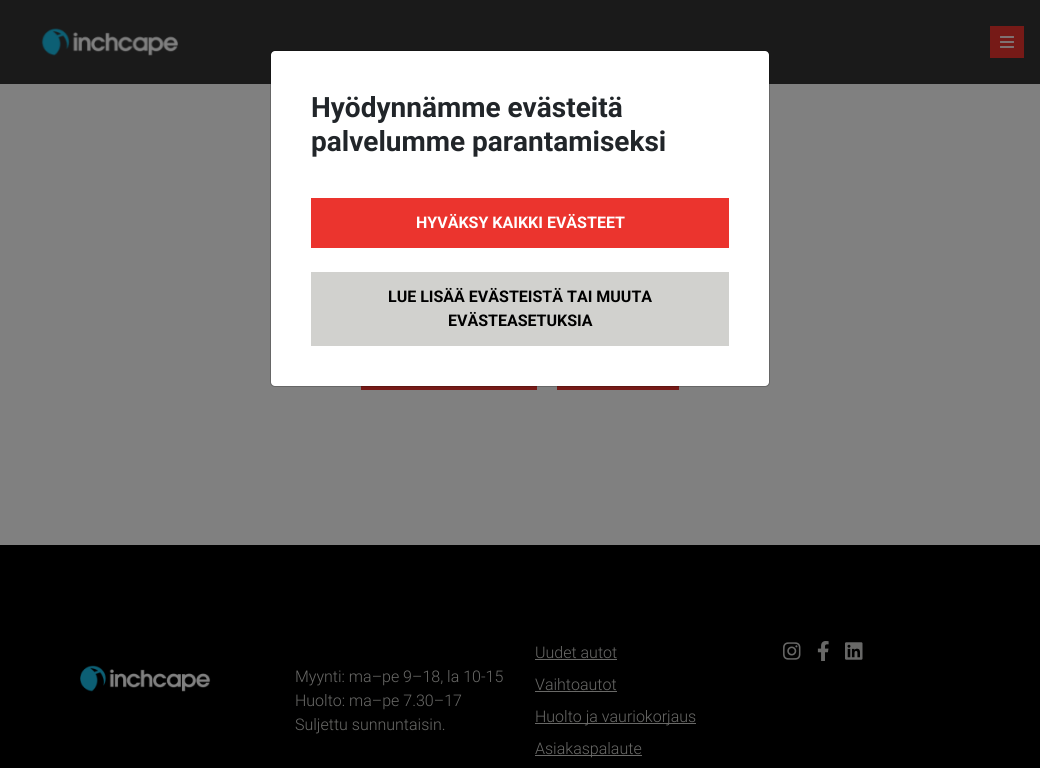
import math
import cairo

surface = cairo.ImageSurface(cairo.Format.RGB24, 1040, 768)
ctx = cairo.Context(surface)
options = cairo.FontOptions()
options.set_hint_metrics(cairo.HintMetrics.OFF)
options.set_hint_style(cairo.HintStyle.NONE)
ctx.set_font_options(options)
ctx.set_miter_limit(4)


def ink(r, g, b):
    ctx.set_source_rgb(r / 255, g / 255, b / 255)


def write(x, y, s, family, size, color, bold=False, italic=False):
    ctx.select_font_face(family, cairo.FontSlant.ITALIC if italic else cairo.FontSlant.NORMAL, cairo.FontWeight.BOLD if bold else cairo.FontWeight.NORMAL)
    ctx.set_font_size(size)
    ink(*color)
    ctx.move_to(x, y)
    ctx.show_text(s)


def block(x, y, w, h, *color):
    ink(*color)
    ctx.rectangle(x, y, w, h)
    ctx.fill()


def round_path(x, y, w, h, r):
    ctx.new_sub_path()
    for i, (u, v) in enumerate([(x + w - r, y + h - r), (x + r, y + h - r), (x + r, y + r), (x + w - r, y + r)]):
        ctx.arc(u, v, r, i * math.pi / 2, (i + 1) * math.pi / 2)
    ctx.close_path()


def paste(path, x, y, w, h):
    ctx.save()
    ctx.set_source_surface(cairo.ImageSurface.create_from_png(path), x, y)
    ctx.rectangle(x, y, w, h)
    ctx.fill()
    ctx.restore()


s1 = dict(family="Roboto", size=28, color=(33, 37, 41), bold=True)
s2 = dict(family="Roboto", size=16, color=(255, 255, 255), bold=True)
s3 = dict(family="Roboto", size=16, color=(0, 0, 0), bold=True)
s4 = dict(family="Roboto Light", size=16, color=(105, 105, 103))

ink(128, 128, 128)
ctx.paint()
block(0, 0, 1040, 84, 26, 26, 26)
paste("pic1.png", 41, 28, 138, 28)
block(990, 26, 34, 32, 118, 26, 23)
paste("pic2.png", 1000, 36, 14, 12)
ink(255, 255, 255)
round_path(271, 51, 498, 335, 4)
ctx.fill()
block(361, 386, 176, 4, 118, 26, 23)
block(557, 386, 122, 4, 118, 26, 23)
round_path(270.5, 50.5, 499, 336, 4.5)
ctx.set_source_rgba(0, 0, 0, 0.2)
ctx.set_line_width(1)
ctx.stroke()
write(311, 117, "Hyödynnämme evästeitä", **s1)
write(311, 151, "palvelumme parantamiseksi", **s1)
block(311, 198, 418, 50, 235, 52, 46)
write(416, 228, "HYVÄKSY KAIKKI EVÄSTEET", **s2)
block(311, 272, 418, 74, 209, 209, 206)
write(388, 302, "LUE LISÄÄ EVÄSTEISTÄ TAI MUUTA", **s3)
write(448, 326, "EVÄSTEASETUKSIA", **s3)
block(0, 545, 1040, 223, 0, 0, 0)
paste("pic3.png", 80, 665, 131, 27)
write(295, 682, "Myynti: ma–pe 9–18, la 10-15", **s4)
write(295, 706, "Huolto: ma–pe 7.30–17", **s4)
write(295, 730, "Suljettu sunnuntaisin.", **s4)
write(535, 658, "Uudet autot", **s4)
block(535, 659, 82, 1, 105, 105, 103)
write(535, 690, "Vaihtoautot", **s4)
block(535, 691, 82, 1, 105, 105, 103)
block(535, 723, 161, 1, 105, 105, 103)
write(535, 722, "Huolto ja vauriokorjaus", **s4)
block(535, 755, 107, 1, 105, 105, 103)
write(535, 754, "Asiakaspalaute", **s4)
paste("pic4.png", 783, 642, 18, 18)
paste("pic5.png", 817, 641, 12, 20)
paste("pic6.png", 845, 642, 18, 18)
surface.write_to_png("screenshot.png")
